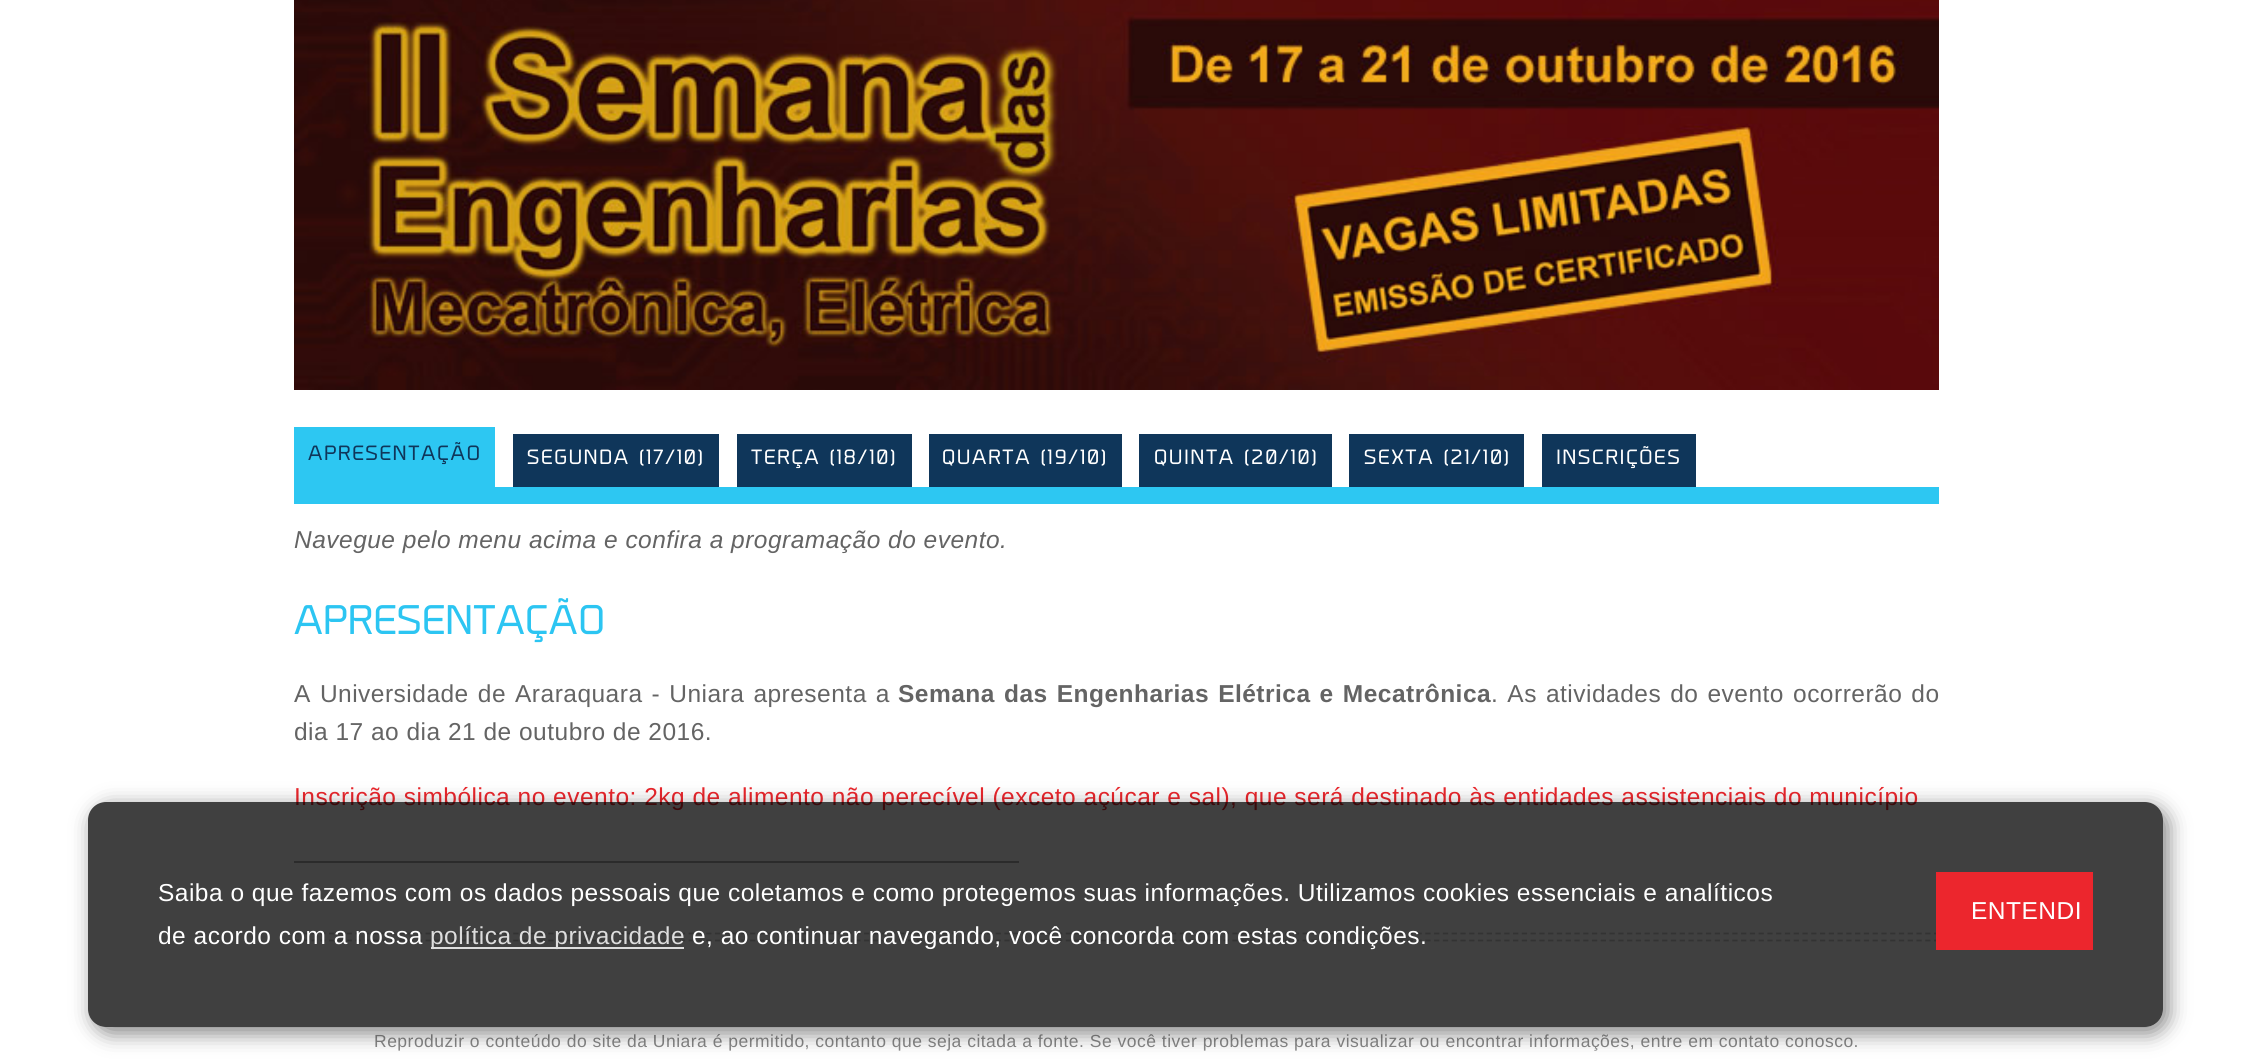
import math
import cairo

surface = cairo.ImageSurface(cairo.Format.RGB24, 2249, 1061)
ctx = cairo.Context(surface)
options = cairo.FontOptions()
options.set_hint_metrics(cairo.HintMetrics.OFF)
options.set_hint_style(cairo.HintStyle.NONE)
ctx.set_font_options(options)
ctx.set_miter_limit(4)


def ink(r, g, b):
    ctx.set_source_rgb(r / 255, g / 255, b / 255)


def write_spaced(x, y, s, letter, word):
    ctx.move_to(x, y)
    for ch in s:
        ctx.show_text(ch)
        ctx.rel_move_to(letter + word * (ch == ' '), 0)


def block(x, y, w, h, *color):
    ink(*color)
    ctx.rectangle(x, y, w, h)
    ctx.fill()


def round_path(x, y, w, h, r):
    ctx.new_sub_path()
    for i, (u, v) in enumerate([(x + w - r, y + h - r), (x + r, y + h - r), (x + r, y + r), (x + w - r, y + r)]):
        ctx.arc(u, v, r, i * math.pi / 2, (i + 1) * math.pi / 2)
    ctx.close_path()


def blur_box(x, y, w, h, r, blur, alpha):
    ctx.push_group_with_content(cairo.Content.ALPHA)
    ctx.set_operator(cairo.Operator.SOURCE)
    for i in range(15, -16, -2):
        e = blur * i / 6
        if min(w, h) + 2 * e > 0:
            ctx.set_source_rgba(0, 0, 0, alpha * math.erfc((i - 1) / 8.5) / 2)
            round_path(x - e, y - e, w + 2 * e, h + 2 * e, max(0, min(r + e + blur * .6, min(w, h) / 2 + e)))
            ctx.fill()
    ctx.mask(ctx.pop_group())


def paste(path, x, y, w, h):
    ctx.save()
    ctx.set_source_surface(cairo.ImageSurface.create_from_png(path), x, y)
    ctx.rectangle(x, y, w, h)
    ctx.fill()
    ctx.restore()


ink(255, 255, 255)
ctx.paint()
paste("pic1.png", 294, 0, 1645, 390)
block(294, 487, 1645, 17, 45, 199, 242)
block(294, 427, 201, 60, 45, 199, 242)
ctx.select_font_face("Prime")
ctx.set_font_size(19.25)
ink(15, 54, 90)
write_spaced(308, 460, "APRESENTAÇÃO", 1.75, 0)
block(513, 434, 206, 53, 15, 54, 90)
ink(255, 255, 255)
write_spaced(527, 464, "SEGUNDA (17/10)", 1.75, 0)
block(737, 434, 175, 53, 15, 54, 90)
ink(255, 255, 255)
write_spaced(751, 464, "TERÇA (18/10)", 1.75, 0)
block(929, 434, 193, 53, 15, 54, 90)
ink(255, 255, 255)
write_spaced(942, 464, "QUARTA (19/10)", 1.75, 0)
block(1139, 434, 193, 53, 15, 54, 90)
ink(255, 255, 255)
write_spaced(1154, 464, "QUINTA (20/10)", 1.75, 0)
block(1349, 434, 175, 53, 15, 54, 90)
ink(255, 255, 255)
write_spaced(1364, 464, "SEXTA (21/10)", 1.75, 0)
block(1542, 434, 154, 53, 15, 54, 90)
ink(255, 255, 255)
write_spaced(1556, 464, "INSCRIÇÕES", 1.75, 0)
ctx.select_font_face("Liberation Sans", cairo.FontSlant.ITALIC)
ctx.set_font_size(24.5)
ink(100, 100, 100)
write_spaced(294, 548, "Navegue pelo menu acima e confira a programação do evento.", 0.49, 0)
ctx.select_font_face("Prime")
ctx.set_font_size(38.5)
ink(44, 197, 242)
write_spaced(294, 634, "APRESENTAÇÃO", 0.49, 0)
ctx.select_font_face("Liberation Sans")
ctx.set_font_size(24.5)
ink(100, 100, 100)
write_spaced(294, 702, "A Universidade de Araraquara - Uniara apresenta a", 0.49, 1.75)
ctx.select_font_face("Liberation Sans", cairo.FontSlant.NORMAL, cairo.FontWeight.BOLD)
write_spaced(898, 702, "Semana das Engenharias Elétrica e Mecatrônica", 0.49, 1.75)
ctx.select_font_face("Liberation Sans")
write_spaced(1491, 702, ". As atividades do evento ocorrerão do", 0.49, 1.75)
write_spaced(294, 740, "dia 17 ao dia 21 de outubro de 2016.", 0.49, 0)
ink(235, 38, 44)
write_spaced(294, 805, "Inscrição simbólica no evento: 2kg de alimento não perecível (exceto açúcar e sal), que será destinado às entidades assistenciais do município", 0.49, 0)
block(294, 861, 725, 2, 170, 170, 170)
ctx.new_path()
ctx.move_to(294, 933.5)
ctx.line_to(1939, 933.5)
ink(204, 204, 204)
ctx.set_line_width(1.8)
ctx.set_dash([5.25, 3.52])
ctx.stroke()
ctx.new_path()
ctx.move_to(294, 940.5)
ctx.line_to(1939, 940.5)
ctx.stroke()
ctx.set_font_size(17.5)
ink(136, 136, 136)
write_spaced(374, 1047, "Reproduzir o conteúdo do site da Uniara é permitido, contanto que seja citada a fonte. Se você tiver problemas para visualizar ou encontrar informações, entre em contato conosco.", 0.49, 0)
ctx.save()
ctx.set_fill_rule(cairo.FillRule.EVEN_ODD)
ctx.new_path()
ctx.move_to(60, 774)
ctx.line_to(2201, 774)
ctx.line_to(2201, 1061)
ctx.line_to(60, 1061)
ctx.close_path()
ctx.move_to(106, 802)
ctx.line_to(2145, 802)
ctx.curve_to(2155, 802, 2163, 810, 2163, 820)
ctx.line_to(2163, 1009)
ctx.curve_to(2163, 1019, 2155, 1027, 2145, 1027)
ctx.line_to(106, 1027)
ctx.curve_to(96, 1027, 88, 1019, 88, 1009)
ctx.line_to(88, 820)
ctx.curve_to(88, 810, 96, 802, 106, 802)
ctx.close_path()
ctx.clip()
ink(0, 0, 0)
blur_box(93, 807, 2075, 226, 18, 10.5, 0.5)
ctx.restore()
ctx.set_source_rgba(0, 0, 0, 0.75)
round_path(88, 802, 2075, 225, 18)
ctx.fill()
ctx.set_font_size(24.5)
ink(255, 255, 255)
write_spaced(158, 901, "Saiba o que fazemos com os dados pessoais que coletamos e como protegemos suas informações. Utilizamos cookies essenciais e analíticos", 0.49, 0)
write_spaced(158, 944, "de acordo com a nossa", 0.49, 0)
block(431, 947, 253, 2, 221, 221, 221)
write_spaced(430, 944, "política de privacidade", 0.49, 0)
ink(255, 255, 255)
write_spaced(692, 944, "e, ao continuar navegando, você concorda com estas condições.", 0.49, 0)
block(1936, 872, 157, 78, 236, 38, 45)
ink(255, 255, 255)
write_spaced(1971, 919, "ENTENDI", 0.49, 0)
surface.write_to_png("screenshot.png")
